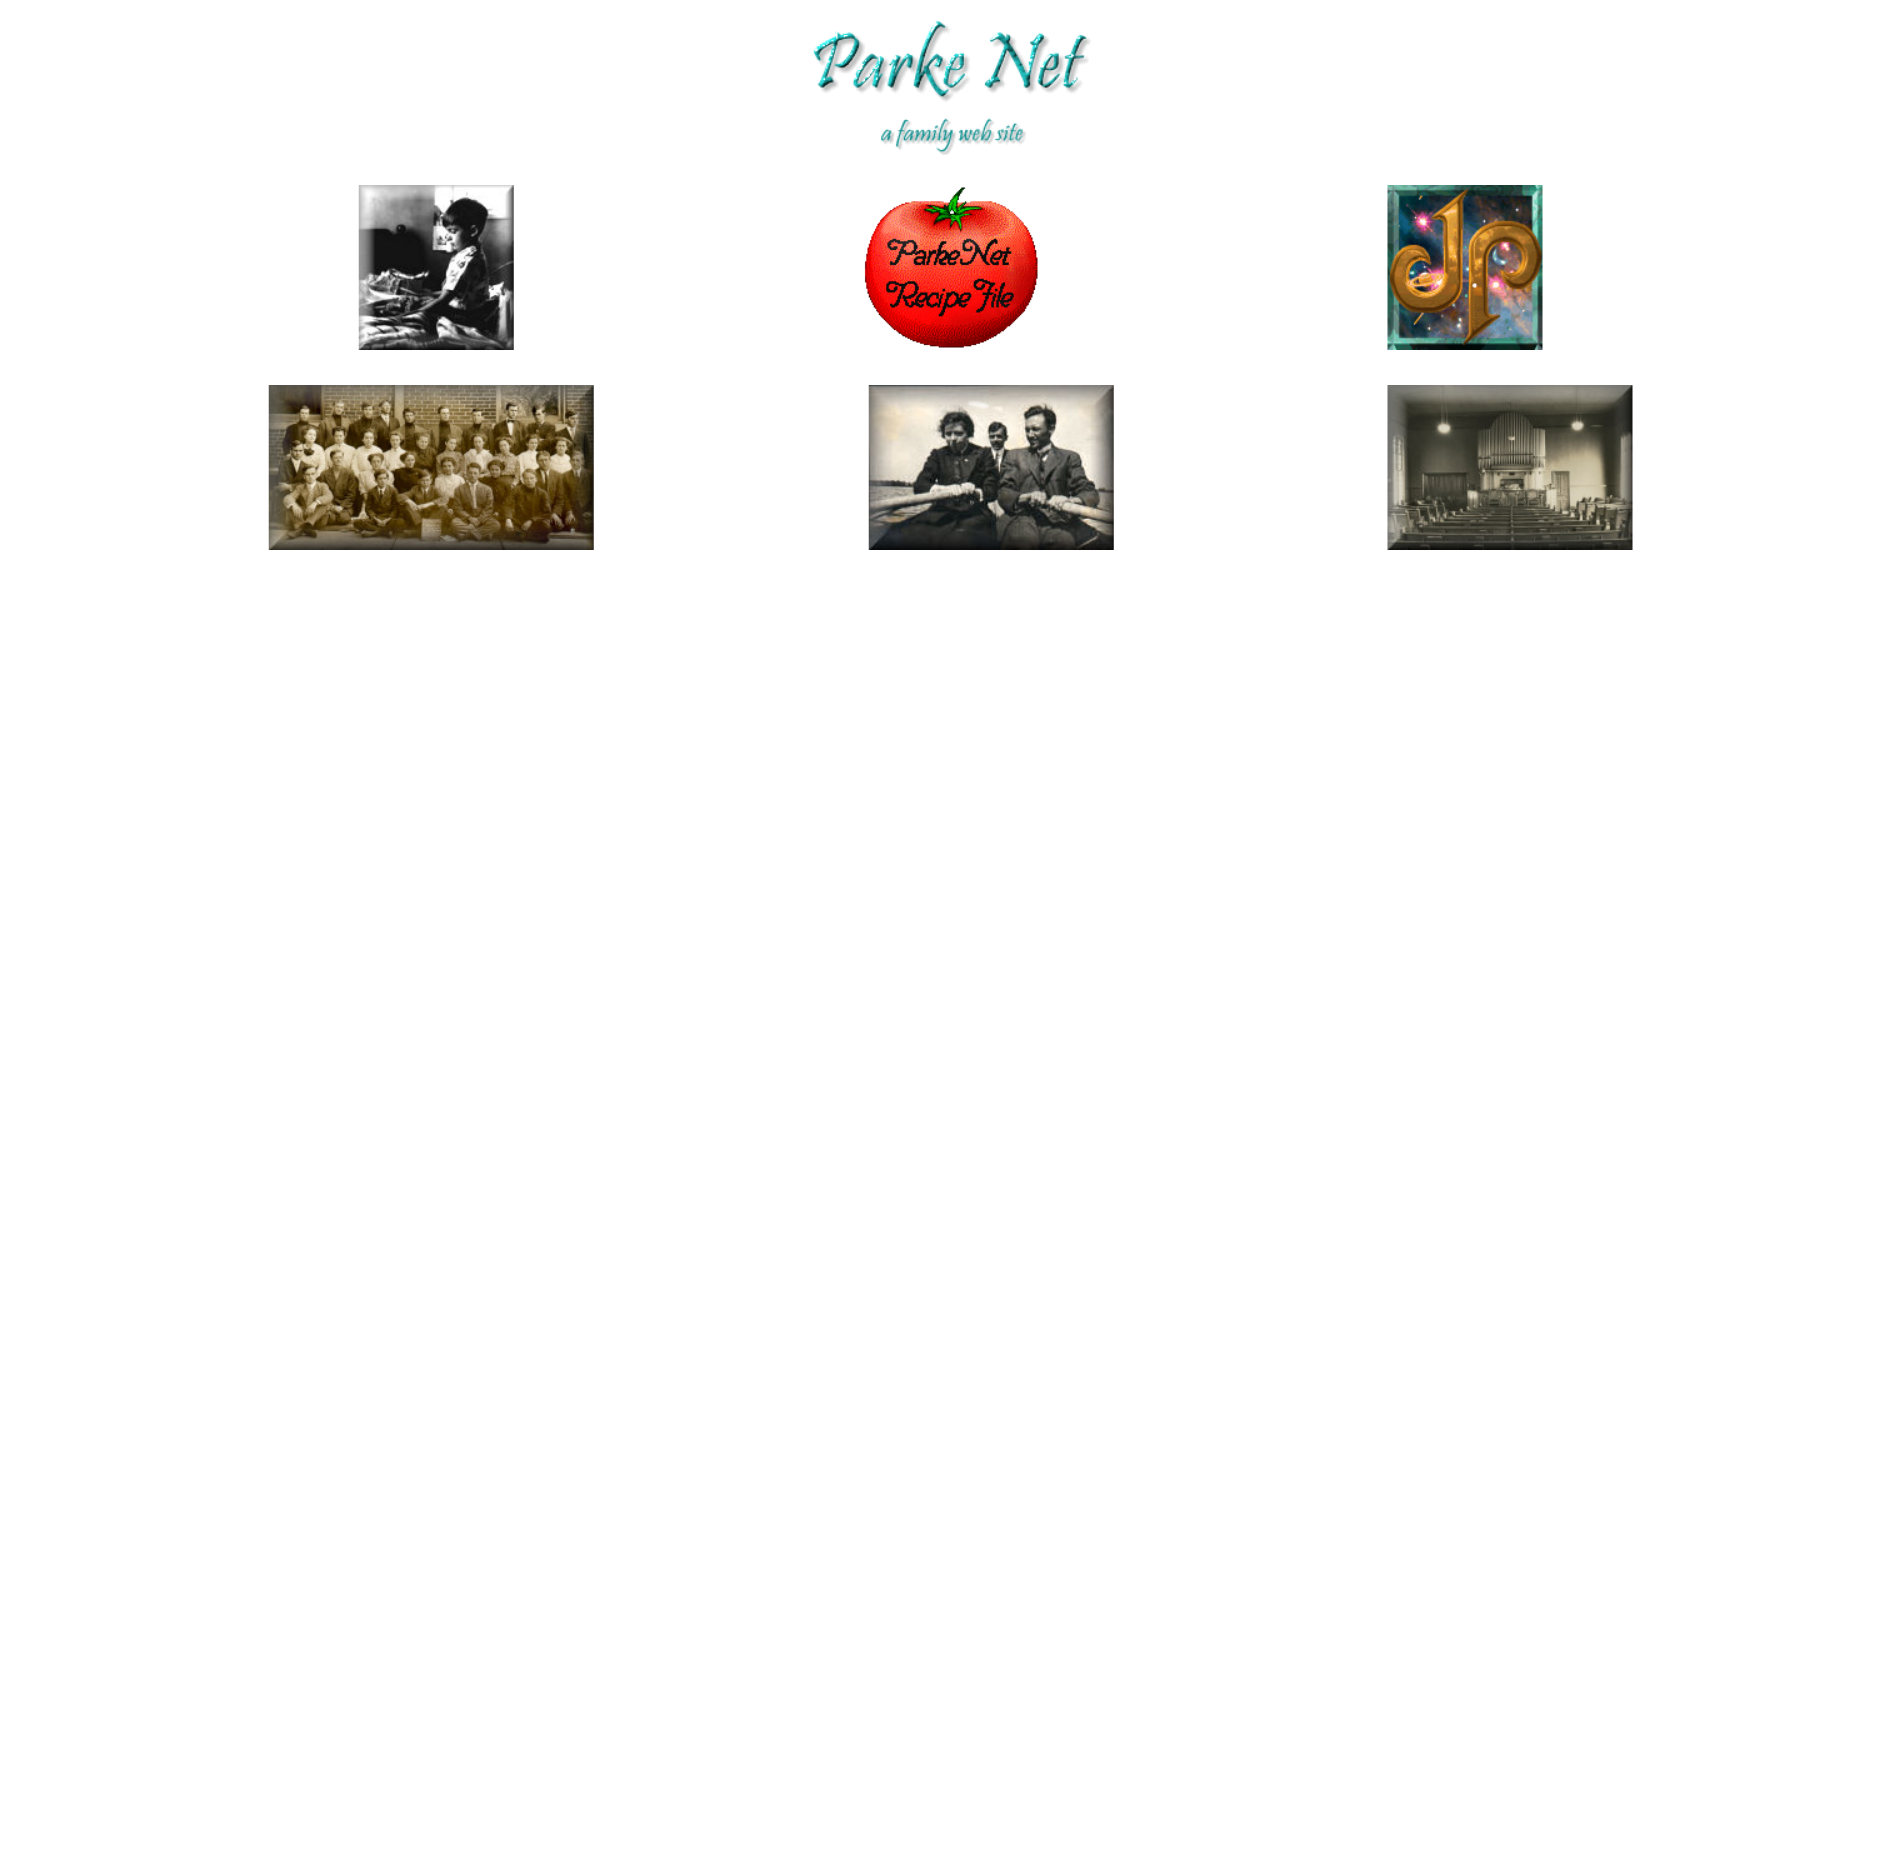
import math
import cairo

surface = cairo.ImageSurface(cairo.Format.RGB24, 1901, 1872)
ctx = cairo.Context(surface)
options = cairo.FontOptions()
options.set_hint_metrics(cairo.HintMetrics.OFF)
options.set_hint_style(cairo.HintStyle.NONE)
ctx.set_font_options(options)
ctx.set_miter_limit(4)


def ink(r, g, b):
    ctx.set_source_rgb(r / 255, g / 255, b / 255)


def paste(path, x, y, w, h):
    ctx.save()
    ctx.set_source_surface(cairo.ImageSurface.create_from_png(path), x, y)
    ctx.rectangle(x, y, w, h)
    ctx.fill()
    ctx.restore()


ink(255, 255, 255)
ctx.paint()
paste("pic1.png", 813, 21, 279, 134)
paste("pic2.png", 358, 185, 156, 165)
paste("pic3.png", 864, 187, 174, 161)
paste("pic4.png", 1387, 185, 156, 165)
paste("pic5.png", 268, 385, 326, 165)
paste("pic6.png", 868, 385, 246, 165)
paste("pic7.png", 1387, 385, 246, 165)
surface.write_to_png("screenshot.png")
